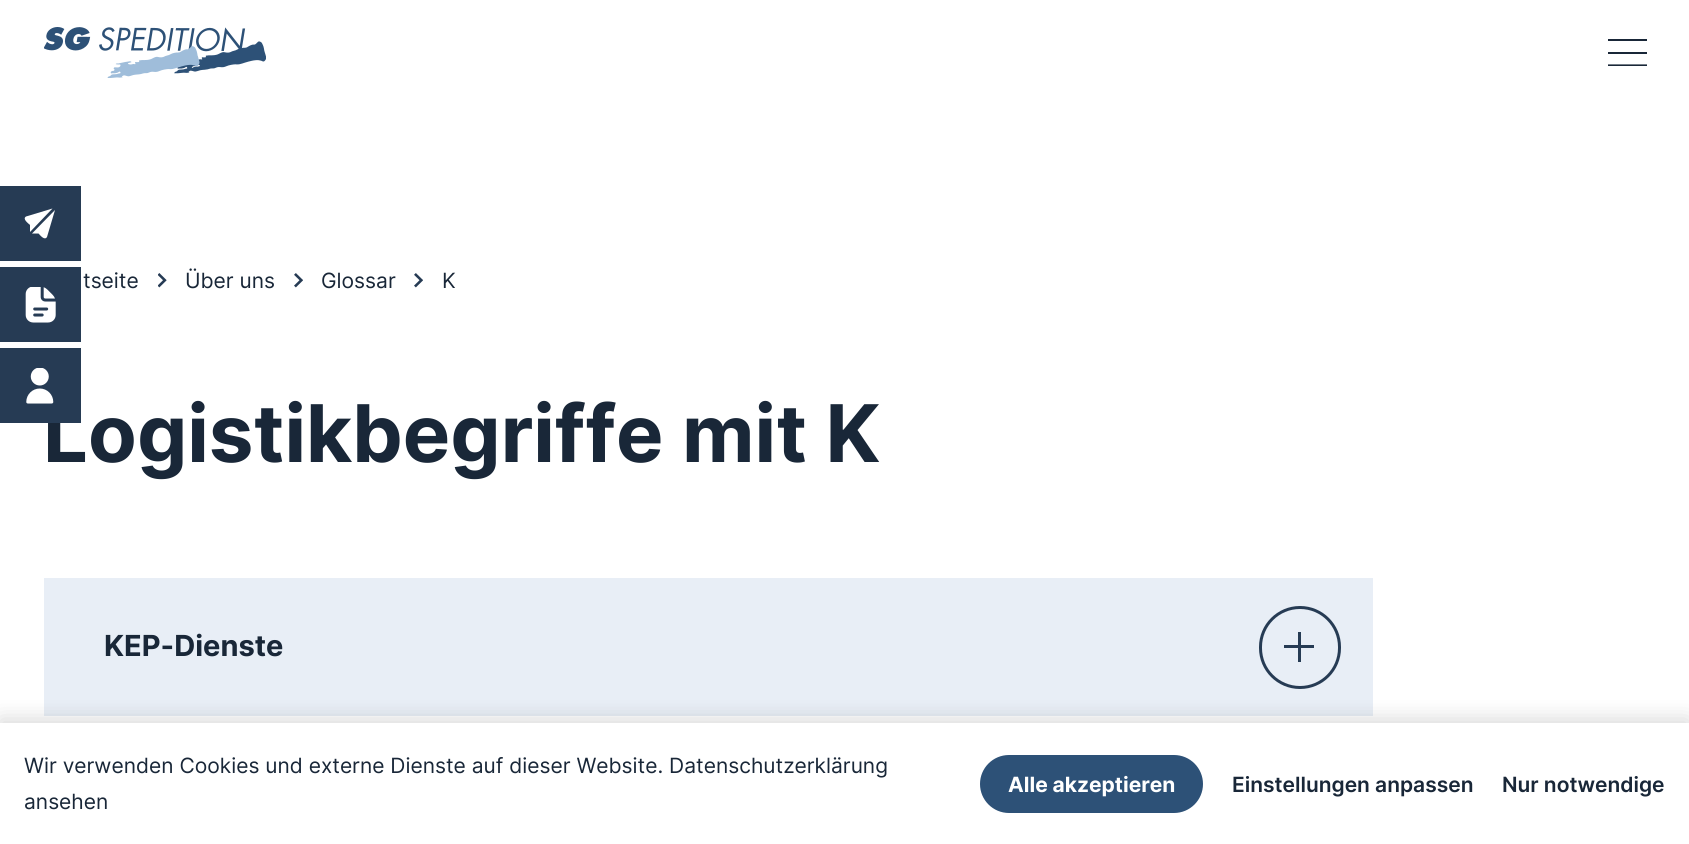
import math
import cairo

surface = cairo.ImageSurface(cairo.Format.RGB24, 1689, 844)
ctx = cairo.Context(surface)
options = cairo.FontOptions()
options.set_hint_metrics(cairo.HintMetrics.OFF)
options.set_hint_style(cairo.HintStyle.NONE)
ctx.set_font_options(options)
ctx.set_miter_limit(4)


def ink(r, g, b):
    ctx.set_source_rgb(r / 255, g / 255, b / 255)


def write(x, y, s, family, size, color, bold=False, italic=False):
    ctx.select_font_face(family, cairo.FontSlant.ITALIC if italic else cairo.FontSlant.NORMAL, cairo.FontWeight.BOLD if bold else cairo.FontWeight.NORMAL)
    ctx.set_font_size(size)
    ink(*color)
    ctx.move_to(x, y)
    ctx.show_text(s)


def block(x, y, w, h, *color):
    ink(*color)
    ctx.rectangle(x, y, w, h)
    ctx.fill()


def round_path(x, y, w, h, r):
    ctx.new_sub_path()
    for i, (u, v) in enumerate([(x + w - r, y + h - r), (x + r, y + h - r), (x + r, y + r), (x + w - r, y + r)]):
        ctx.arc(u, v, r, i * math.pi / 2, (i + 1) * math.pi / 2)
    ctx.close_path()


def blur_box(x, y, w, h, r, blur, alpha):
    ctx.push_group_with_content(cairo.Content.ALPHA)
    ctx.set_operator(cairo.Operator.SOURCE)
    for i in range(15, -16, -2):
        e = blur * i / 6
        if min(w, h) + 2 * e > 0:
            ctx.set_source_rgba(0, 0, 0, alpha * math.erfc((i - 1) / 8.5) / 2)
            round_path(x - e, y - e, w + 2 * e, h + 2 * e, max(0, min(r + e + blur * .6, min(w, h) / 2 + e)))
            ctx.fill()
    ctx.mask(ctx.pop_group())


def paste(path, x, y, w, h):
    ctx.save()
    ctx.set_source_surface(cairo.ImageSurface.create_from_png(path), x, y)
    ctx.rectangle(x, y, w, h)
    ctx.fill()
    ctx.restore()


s1 = dict(family="Inter", size=79.5, color=(25, 39, 56), bold=True)
s2 = dict(family="Inter", size=21, color=(25, 39, 56))
s3 = dict(family="Inter", size=29, color=(25, 39, 56), bold=True)
s4 = dict(family="Inter", size=21, color=(255, 255, 255), bold=True)
s5 = dict(family="Inter SemiBold", size=21, color=(25, 39, 56))

ink(255, 255, 255)
ctx.paint()
paste("pic1.png", 44, 27, 222, 51)
block(1608, 39, 39, 2, 25, 39, 56)
block(1608, 52, 39, 2, 25, 39, 56)
ctx.save()
ctx.rectangle(1608, 39, 39, 27)
ctx.clip()
ctx.new_path()
ctx.move_to(1609, 65.5)
ctx.line_to(1646, 65.5)
ctx.set_line_width(2.2)
ctx.set_line_cap(cairo.LineCap.SQUARE)
ctx.stroke()
ctx.restore()
block(0, 186, 81, 75, 38, 59, 84)
ink(255, 255, 255)
ctx.new_path()
ctx.move_to(30, 232)
ctx.line_to(52.5, 208.5)
ctx.line_to(26, 216.5)
ctx.curve_to(22, 219, 28.5, 223.5, 30, 225)
ctx.close_path()
ctx.move_to(32, 233.5)
ctx.line_to(38.5, 233.5)
ctx.curve_to(40, 235, 44.5, 241, 47, 237)
ctx.line_to(55, 210)
ctx.close_path()
ctx.fill()
block(0, 267, 81, 75, 38, 59, 84)
paste("pic2.png", 25, 287, 31, 36)
write(43, 462, "Logistikbegriffe mit K", **s1)
block(0, 348, 81, 75, 38, 59, 84)
paste("pic3.png", 26, 368, 28, 36)
write(83, 288, "tseite", **s2)
paste("pic4.png", 158, 273, 9, 15)
write(185, 288, "Über uns", **s2)
paste("pic5.png", 294, 273, 9, 15)
write(321, 288, "Glossar", **s2)
paste("pic5.png", 414, 273, 9, 15)
write(442, 288, "K", **s2)
block(44, 578, 1329, 138, 232, 238, 246)
write(104, 656, "KEP-Dienste", **s3)
round_path(1260.5, 607.5, 79, 80, 39.5)
ink(38, 59, 84)
ctx.set_line_width(3)
ctx.stroke()
block(1284, 645, 30, 3, 38, 59, 84)
block(1298, 632, 3, 30, 38, 59, 84)
ink(0, 0, 0)
blur_box(0, 719, 1689, 121, 0, 10.5, 0.15)
block(0, 723, 1689, 121, 255, 255, 255)
write(24, 773, "Wir verwenden Cookies und externe Dienste auf dieser Website. Datenschutzerklärung", **s2)
write(24, 809, "ansehen", **s2)
ink(45, 81, 119)
round_path(981, 756, 221, 56, 28)
ctx.fill_preserve()
ctx.set_line_width(2)
ctx.stroke()
write(1008, 792, "Alle akzeptieren", **s4)
write(1232, 792, "Einstellungen anpassen", **s5)
write(1502, 792, "Nur notwendige", **s5)
surface.write_to_png("screenshot.png")
